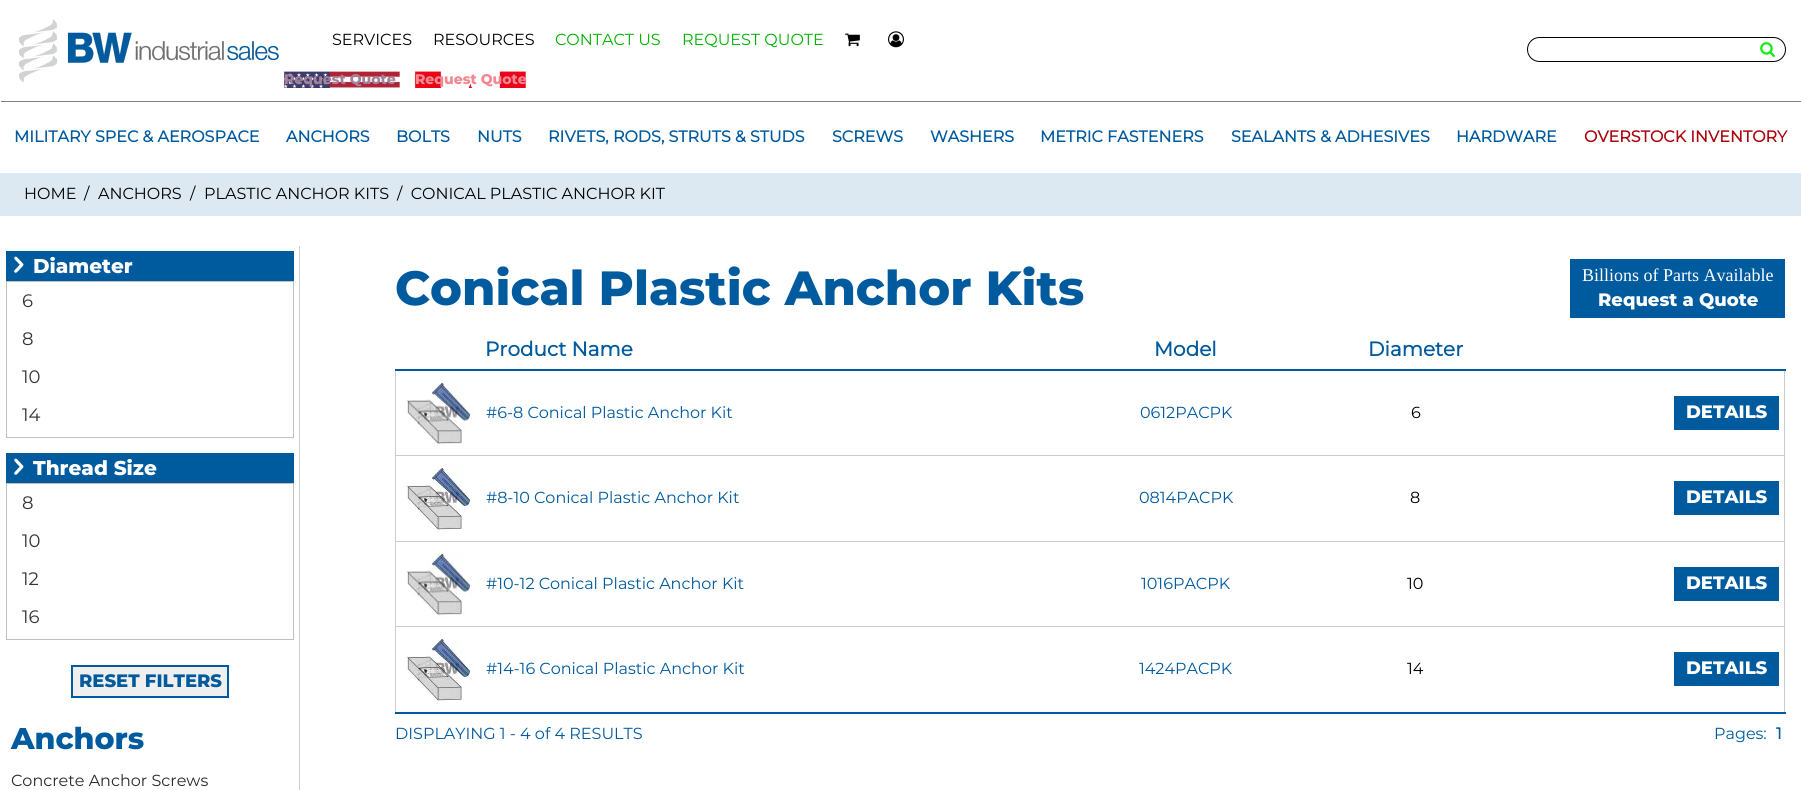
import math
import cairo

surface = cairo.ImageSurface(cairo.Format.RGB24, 1801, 790)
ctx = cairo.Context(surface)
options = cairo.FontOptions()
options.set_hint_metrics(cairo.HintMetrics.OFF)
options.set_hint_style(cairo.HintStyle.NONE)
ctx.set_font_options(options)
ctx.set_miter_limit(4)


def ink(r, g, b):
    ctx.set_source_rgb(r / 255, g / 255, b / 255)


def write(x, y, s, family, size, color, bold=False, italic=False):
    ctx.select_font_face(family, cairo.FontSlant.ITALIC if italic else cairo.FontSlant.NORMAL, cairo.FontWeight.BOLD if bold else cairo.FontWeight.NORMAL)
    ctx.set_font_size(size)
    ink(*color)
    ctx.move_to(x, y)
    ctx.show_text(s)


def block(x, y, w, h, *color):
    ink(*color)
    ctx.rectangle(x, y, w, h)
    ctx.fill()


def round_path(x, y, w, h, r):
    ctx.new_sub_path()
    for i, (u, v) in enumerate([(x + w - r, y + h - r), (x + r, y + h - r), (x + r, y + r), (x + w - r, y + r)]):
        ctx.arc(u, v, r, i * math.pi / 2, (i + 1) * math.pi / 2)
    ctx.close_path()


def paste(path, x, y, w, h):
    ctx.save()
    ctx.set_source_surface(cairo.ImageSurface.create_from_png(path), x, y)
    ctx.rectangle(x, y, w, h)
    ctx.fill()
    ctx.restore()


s1 = dict(family="Montserrat", size=16, color=(0, 0, 0))
s2 = dict(family="Montserrat", size=16, color=(0, 178, 1))
s3 = dict(family="Montserrat ExtraBold", size=14, color=(163, 130, 153))
s4 = dict(family="Montserrat ExtraBold", size=14, color=(244, 136, 145))
s5 = dict(family="Montserrat", size=16, color=(0, 90, 158), bold=True)
s6 = dict(family="Montserrat", size=16, color=(170, 4, 12), bold=True)
s7 = dict(family="Montserrat ExtraBold", size=20, color=(255, 255, 255))
s8 = dict(family="Montserrat", size=18, color=(51, 51, 51))
s9 = dict(family="Montserrat ExtraBold", size=18, color=(0, 90, 158))
s10 = dict(family="Montserrat ExtraBold", size=30, color=(0, 90, 158))
s11 = dict(family="Montserrat", size=16, color=(44, 42, 41))
s12 = dict(family="Montserrat ExtraBold", size=48, color=(0, 90, 158))
s13 = dict(family="Liberation Serif", size=18, color=(255, 255, 255))
s14 = dict(family="Montserrat ExtraBold", size=18, color=(255, 255, 255))
s15 = dict(family="Montserrat", size=20, color=(0, 90, 158), bold=True)
s16 = dict(family="Montserrat", size=16, color=(0, 90, 158))

ink(255, 255, 255)
ctx.paint()
block(1, 101, 1800, 1, 128, 128, 128)
paste("pic1.png", 19, 19, 260, 64)
write(332, 45, "SERVICES", **s1)
write(433, 45, "RESOURCES", **s1)
write(555, 45, "CONTACT US", **s2)
write(682, 45, "REQUEST QUOTE", **s2)
paste("pic2.png", 845, 33, 15, 14)
paste("pic3.png", 888, 31, 16, 17)
paste("pic4.png", 284, 71, 116, 17)
paste("pic5.png", 415, 71, 111, 17)
write(284, 84, "Request Quote", **s3)
write(415, 84, "Request Quote", **s4)
round_path(1527.5, 37.5, 258, 24, 12)
ink(0, 0, 0)
ctx.set_line_width(1)
ctx.stroke()
paste("pic6.png", 1760, 42, 15, 15)
write(14, 142, "MILITARY SPEC & AEROSPACE", **s5)
write(286, 142, "ANCHORS", **s5)
write(396, 142, "BOLTS", **s5)
write(477, 142, "NUTS", **s5)
write(548, 142, "RIVETS, RODS, STRUTS & STUDS", **s5)
write(832, 142, "SCREWS", **s5)
write(930, 142, "WASHERS", **s5)
write(1040, 142, "METRIC FASTENERS", **s5)
write(1231, 142, "SEALANTS & ADHESIVES", **s5)
write(1456, 142, "HARDWARE", **s5)
write(1584, 142, "OVERSTOCK INVENTORY", **s6)
block(0, 173, 1801, 43, 221, 233, 242)
write(24, 199, "HOME", **s1)
write(84, 199, "/", **s1)
write(98, 199, "ANCHORS", **s1)
write(190, 199, "/", **s1)
write(204, 199, "PLASTIC ANCHOR KITS", **s1)
write(397, 199, "/  CONICAL PLASTIC ANCHOR KIT", **s1)
block(299, 246, 1, 544, 204, 204, 204)
block(6, 251, 288, 30, 0, 90, 158)
paste("pic7.png", 14, 256, 10, 17)
write(33, 273, "Diameter", **s7)
ctx.rectangle(6.5, 281.5, 287, 156)
ink(192, 192, 192)
ctx.stroke()
write(22, 307, "6", **s8)
write(22, 345, "8", **s8)
write(22, 383, "10", **s8)
write(22, 421, "14", **s8)
block(6, 453, 288, 30, 0, 90, 158)
paste("pic7.png", 14, 458, 10, 17)
write(33, 475, "Thread Size", **s7)
ctx.rectangle(6.5, 483.5, 287, 156)
ink(192, 192, 192)
ctx.stroke()
write(22, 509, "8", **s8)
write(22, 547, "10", **s8)
write(22, 585, "12", **s8)
write(22, 623, "16", **s8)
ink(239, 239, 239)
ctx.rectangle(72, 666, 156, 31)
ctx.fill_preserve()
ink(0, 90, 158)
ctx.set_line_width(2)
ctx.stroke()
write(79, 687, "RESET FILTERS", **s9)
write(11, 749, "Anchors", **s10)
write(11, 786, "Concrete Anchor Screws", **s11)
write(395, 305, "Conical Plastic Anchor Kits", **s12)
ctx.rectangle(1571, 260, 213, 57)
ctx.fill_preserve()
ctx.stroke()
write(1582, 281, "Billions of Parts Available", **s13)
write(1598, 306, "Request a Quote", **s14)
write(485, 356, "Product Name", **s15)
write(1154, 356, "Model", **s15)
write(1368, 356, "Diameter", **s15)
block(1784, 369, 1, 344, 204, 204, 204)
block(395, 626, 1, 87, 204, 204, 204)
block(395, 626, 1390, 1, 204, 204, 204)
block(395, 541, 1, 86, 204, 204, 204)
block(395, 541, 1390, 1, 204, 204, 204)
block(395, 455, 1, 87, 204, 204, 204)
block(395, 455, 1390, 1, 204, 204, 204)
block(395, 369, 1, 87, 204, 204, 204)
block(395, 369, 1391, 2, 0, 90, 158)
paste("pic8.png", 405, 380, 68, 67)
write(486, 418, "#6-8 Conical Plastic Anchor Kit", **s16)
write(1140, 418, "0612PACPK", **s16)
write(1411, 418, "6", **s1)
ink(0, 90, 158)
ctx.rectangle(1675, 397, 103, 32)
ctx.fill_preserve()
ctx.stroke()
write(1686, 418, "DETAILS", **s14)
paste("pic9.png", 405, 465, 68, 68)
write(486, 503, "#8-10 Conical Plastic Anchor Kit", **s16)
write(1139, 503, "0814PACPK", **s16)
write(1410, 503, "8", **s1)
ink(0, 90, 158)
ctx.rectangle(1675, 482, 103, 32)
ctx.fill_preserve()
ctx.stroke()
write(1686, 503, "DETAILS", **s14)
paste("pic10.png", 405, 551, 68, 67)
write(486, 589, "#10-12 Conical Plastic Anchor Kit", **s16)
write(1141, 589, "1016PACPK", **s16)
write(1407, 589, "10", **s1)
ink(0, 90, 158)
ctx.rectangle(1675, 568, 103, 32)
ctx.fill_preserve()
ctx.stroke()
write(1686, 589, "DETAILS", **s14)
block(395, 712, 1391, 2, 0, 90, 158)
paste("pic9.png", 405, 636, 68, 68)
write(486, 674, "#14-16 Conical Plastic Anchor Kit", **s16)
write(1139, 674, "1424PACPK", **s16)
write(1407, 674, "14", **s1)
ink(0, 90, 158)
ctx.rectangle(1675, 653, 103, 32)
ctx.fill_preserve()
ctx.stroke()
write(1686, 674, "DETAILS", **s14)
write(395, 739, "DISPLAYING 1 - 4 of 4 RESULTS", **s16)
write(1714, 739, "Pages:", **s16)
write(1776, 739, "1", **s5)
surface.write_to_png("screenshot.png")
